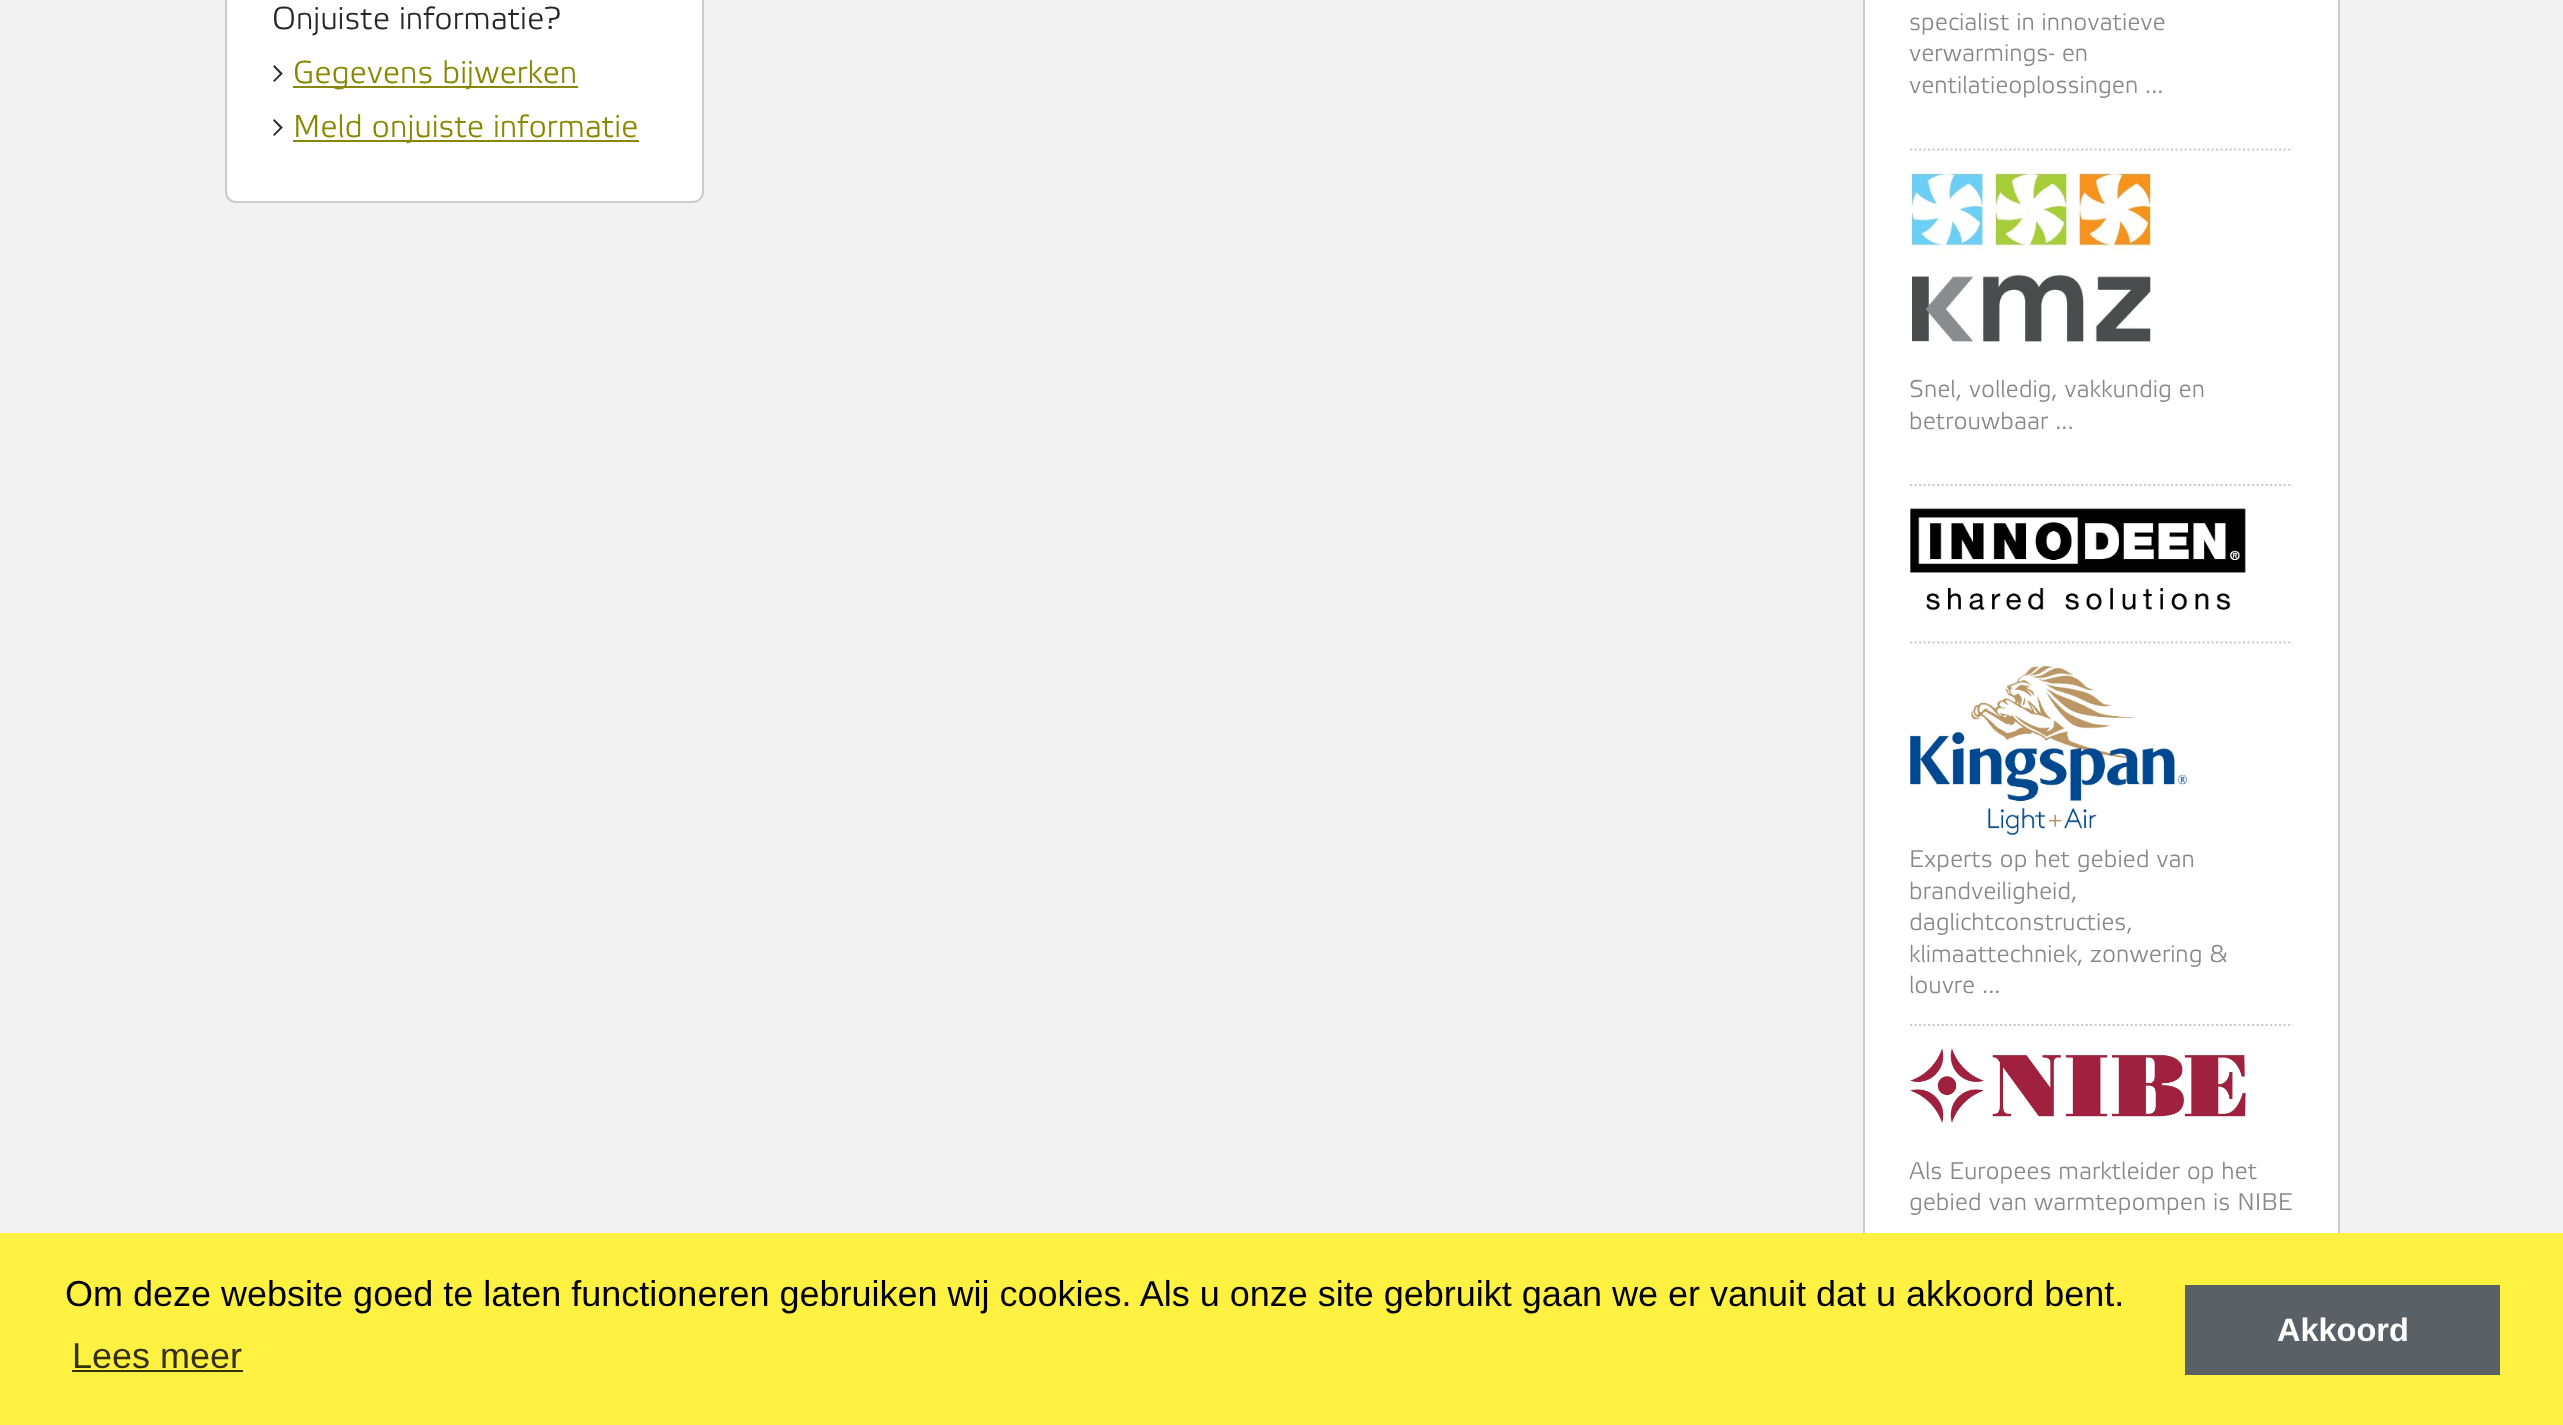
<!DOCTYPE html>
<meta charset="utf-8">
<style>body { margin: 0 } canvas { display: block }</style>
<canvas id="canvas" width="2563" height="1425"></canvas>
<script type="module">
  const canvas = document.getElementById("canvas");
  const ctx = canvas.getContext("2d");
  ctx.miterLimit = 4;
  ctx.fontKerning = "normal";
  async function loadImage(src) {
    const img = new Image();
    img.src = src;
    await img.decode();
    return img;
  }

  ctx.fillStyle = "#f2f2f2";
  ctx.fillRect(0, 0, 2563, 1425);
  ctx.fillStyle = "#ffffff";
  ctx.beginPath();
  ctx.roundRect(226, -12, 477, 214, 10);
  ctx.fill();
  ctx.strokeStyle = "#cccccc";
  ctx.lineWidth = 2;
  ctx.stroke();
  ctx.font = "300 31.5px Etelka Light";
  ctx.fillStyle = "#272727";
  ctx.fillText("Onjuiste informatie?", 272, 29);
  ctx.fillText("›", 272, 83);
  ctx.fillStyle = "#888800";
  ctx.fillRect(293, 86, 285, 2);
  ctx.fillText("Gegevens bijwerken", 293, 83);
  ctx.fillStyle = "#272727";
  ctx.fillText("›", 272, 137);
  ctx.fillStyle = "#888800";
  ctx.fillRect(293, 140, 346, 2);
  ctx.fillText("Meld onjuiste informatie", 293, 137);
  ctx.fillStyle = "#ffffff";
  ctx.fillRect(1865, 0, 473, 1233);
  ctx.strokeRect(1864, -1, 475, 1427);
  ctx.beginPath();
  ctx.moveTo(1910, 149.5);
  ctx.lineTo(2293, 149.5);
  ctx.lineWidth = 2.2;
  ctx.setLineDash([2.25, 2.25]);
  ctx.stroke();
  ctx.font = "300 24px Etelka Light";
  ctx.fillStyle = "#888888";
  ctx.fillText("specialist in innovatieve", 1909, 30);
  ctx.fillText("verwarmings- en", 1909, 61);
  ctx.fillText("ventilatieoplossingen ...", 1909, 93);
  ctx.beginPath();
  ctx.moveTo(1910, 485);
  ctx.lineTo(2293, 485);
  ctx.stroke();
  ctx.drawImage(await loadImage("img1.png"), 1910, 173, 241, 169);
  ctx.fillText("Snel, volledig, vakkundig en", 1909, 397);
  ctx.fillText("betrouwbaar ...", 1909, 429);
  ctx.beginPath();
  ctx.moveTo(1910, 642.5);
  ctx.lineTo(2293, 642.5);
  ctx.stroke();
  ctx.drawImage(await loadImage("img2.png"), 1910, 508, 336, 102);
  ctx.beginPath();
  ctx.moveTo(1910, 1025);
  ctx.lineTo(2293, 1025);
  ctx.stroke();
  ctx.drawImage(await loadImage("img3.png"), 1910, 666, 277, 169);
  ctx.fillText("Experts op het gebied van", 1909, 867);
  ctx.fillText("brandveiligheid,", 1909, 899);
  ctx.fillText("daglichtconstructies,", 1909, 930);
  ctx.fillText("klimaattechniek, zonwering &", 1909, 962);
  ctx.fillText("louvre ...", 1909, 993);
  ctx.drawImage(await loadImage("img4.png"), 1910, 1048, 336, 75);
  ctx.fillText("Als Europees marktleider op het", 1909, 1179);
  ctx.fillText("gebied van warmtepompen is NIBE", 1909, 1210);
  ctx.fillStyle = "#fef142";
  ctx.fillRect(0, 1233, 2563, 192);
  ctx.font = "36px Liberation Sans";
  ctx.fillStyle = "#000000";
  ctx.fillText("Om deze website goed te laten functioneren gebruiken wij cookies. Als u onze site gebruikt gaan we er vanuit dat u akkoord bent.", 65, 1306);
  ctx.fillStyle = "#33300d";
  ctx.fillText("Lees meer", 72, 1368);
  ctx.fillRect(72, 1370, 171, 2);
  ctx.fillStyle = "#596167";
  ctx.fillRect(2185, 1285, 315, 90);
  ctx.font = "bold 32.5px Liberation Sans";
  ctx.fillStyle = "#ffffff";
  ctx.fillText("Akkoord", 2277, 1341);
</script>
